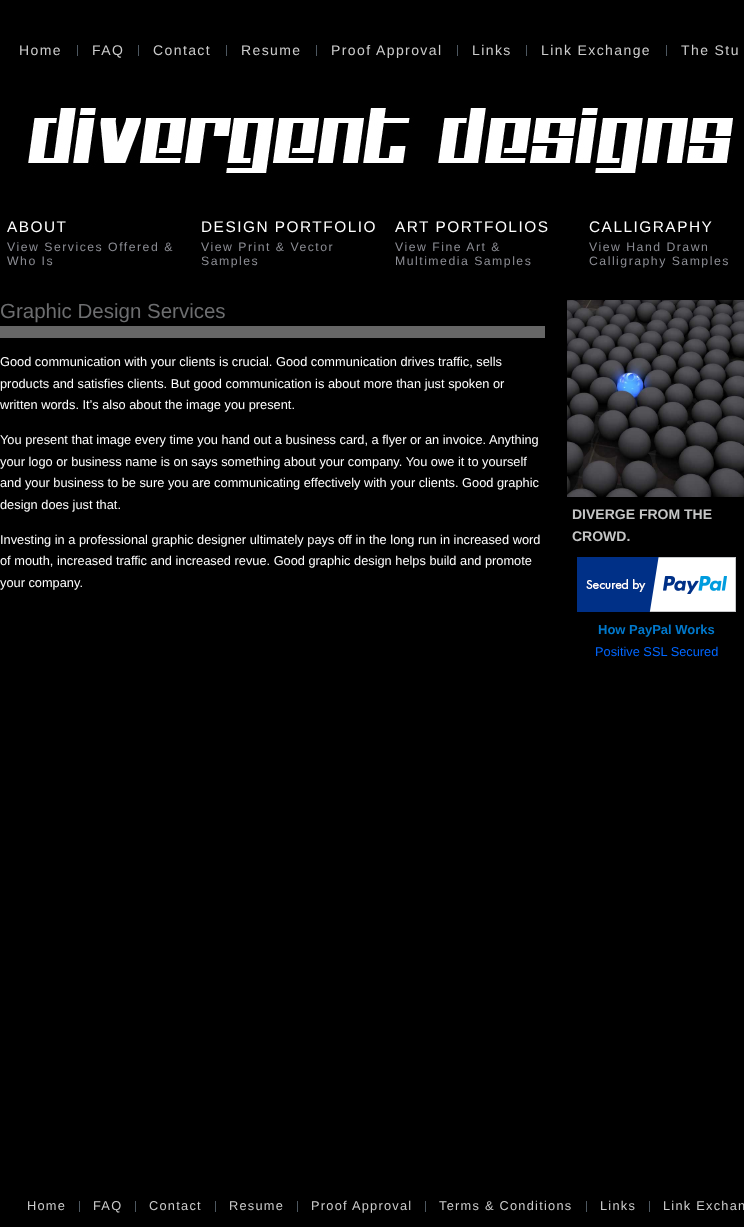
<!DOCTYPE html>
<meta charset="utf-8">
<style>body { margin: 0 } canvas { display: block }</style>
<canvas id="canvas" width="744" height="1227"></canvas>
<script type="module">
  const canvas = document.getElementById("canvas");
  const ctx = canvas.getContext("2d");
  ctx.miterLimit = 4;
  ctx.fontKerning = "normal";
  async function loadImage(src) {
    const img = new Image();
    img.src = src;
    await img.decode();
    return img;
  }

  ctx.fillStyle = "#000000";
  ctx.fillRect(0, 0, 744, 1227);
  ctx.fillStyle = "#4d5760";
  ctx.fillRect(77, 45, 1, 11);
  ctx.letterSpacing = "1.4px";
  ctx.font = "14px Liberation Sans";
  ctx.fillStyle = "#cccccc";
  ctx.fillText("Home", 19, 55);
  ctx.fillStyle = "#4d5760";
  ctx.fillRect(138, 45, 1, 11);
  ctx.fillStyle = "#cccccc";
  ctx.fillText("FAQ", 92, 55);
  ctx.fillStyle = "#4d5760";
  ctx.fillRect(226, 45, 1, 11);
  ctx.fillStyle = "#cccccc";
  ctx.fillText("Contact", 153, 55);
  ctx.fillStyle = "#4d5760";
  ctx.fillRect(316, 45, 1, 11);
  ctx.fillStyle = "#cccccc";
  ctx.fillText("Resume", 241, 55);
  ctx.fillStyle = "#4d5760";
  ctx.fillRect(457, 45, 1, 11);
  ctx.fillStyle = "#cccccc";
  ctx.fillText("Proof Approval", 331, 55);
  ctx.fillStyle = "#4d5760";
  ctx.fillRect(526, 45, 1, 11);
  ctx.fillStyle = "#cccccc";
  ctx.fillText("Links", 472, 55);
  ctx.fillStyle = "#4d5760";
  ctx.fillRect(666, 45, 1, 11);
  ctx.fillStyle = "#cccccc";
  ctx.fillText("Link Exchange", 541, 55);
  ctx.fillText("The Stu", 681, 55);
  ctx.drawImage(await loadImage("img1.png"), 28, 108, 705, 65);
  ctx.letterSpacing = "1.5px";
  ctx.font = "15.4px Liberation Sans";
  ctx.fillStyle = "#ffffff";
  ctx.fillText("ABOUT", 7, 232);
  ctx.font = "12.25px Liberation Sans";
  ctx.fillStyle = "#8c8d94";
  ctx.fillText("View Services Offered &", 7, 251);
  ctx.fillText("Who Is", 7, 265);
  ctx.font = "15.4px Liberation Sans";
  ctx.fillStyle = "#ffffff";
  ctx.fillText("DESIGN PORTFOLIO", 201, 232);
  ctx.font = "12.25px Liberation Sans";
  ctx.fillStyle = "#8c8d94";
  ctx.fillText("View Print & Vector", 201, 251);
  ctx.fillText("Samples", 201, 265);
  ctx.font = "15.4px Liberation Sans";
  ctx.fillStyle = "#ffffff";
  ctx.fillText("ART PORTFOLIOS", 395, 232);
  ctx.font = "12.25px Liberation Sans";
  ctx.fillStyle = "#8c8d94";
  ctx.fillText("View Fine Art &", 395, 251);
  ctx.fillText("Multimedia Samples", 395, 265);
  ctx.font = "15.4px Liberation Sans";
  ctx.fillStyle = "#ffffff";
  ctx.fillText("CALLIGRAPHY", 589, 232);
  ctx.font = "12.25px Liberation Sans";
  ctx.fillStyle = "#8c8d94";
  ctx.fillText("View Hand Drawn", 589, 251);
  ctx.fillText("Calligraphy Samples", 589, 265);
  ctx.fillStyle = "#666666";
  ctx.fillRect(0, 326, 545, 12);
  ctx.letterSpacing = "0px";
  ctx.font = "20.5px Liberation Sans";
  ctx.fillStyle = "#6d6e70";
  ctx.fillText("Graphic Design Services", 0, 318);
  ctx.font = "12.8px Liberation Sans";
  ctx.fillStyle = "#ffffff";
  ctx.fillText("Good communication with your clients is crucial. Good communication drives traffic, sells", 0, 366);
  ctx.fillText("products and satisfies clients. But good communication is about more than just spoken or", 0, 388);
  ctx.fillText("written words. It’s also about the image you present.", 0, 409);
  ctx.fillText("You present that image every time you hand out a business card, a flyer or an invoice. Anything", 0, 444);
  ctx.fillText("your logo or business name is on says something about your company. You owe it to yourself", 0, 466);
  ctx.fillText("and your business to be sure you are communicating effectively with your clients. Good graphic", 0, 487);
  ctx.fillText("design does just that.", 0, 509);
  ctx.fillText("Investing in a professional graphic designer ultimately pays off in the long run in increased word", 0, 544);
  ctx.fillText("of mouth, increased traffic and increased revue. Good graphic design helps build and promote", 0, 565);
  ctx.fillText("your company.", 0, 587);
  ctx.drawImage(await loadImage("img2.png"), 567, 300, 177, 197);
  ctx.font = "bold 14px Liberation Sans";
  ctx.fillStyle = "#c4c5c5";
  ctx.fillText("DIVERGE FROM THE", 572, 519);
  ctx.fillText("CROWD.", 572, 541);
  ctx.drawImage(await loadImage("img3.png"), 577, 557, 159, 55);
  ctx.font = "bold 13px Liberation Sans";
  ctx.fillStyle = "#0079cd";
  ctx.fillText("How PayPal Works", 598, 634);
  ctx.font = "12.8px Liberation Sans";
  ctx.fillStyle = "#0066ff";
  ctx.fillText("Positive SSL Secured", 595, 656);
  ctx.fillStyle = "#4d5760";
  ctx.fillRect(79, 1201, 1, 11);
  ctx.letterSpacing = "1.25px";
  ctx.fillStyle = "#cccccc";
  ctx.fillText("Home", 27, 1210);
  ctx.fillStyle = "#4d5760";
  ctx.fillRect(135, 1201, 1, 11);
  ctx.fillStyle = "#cccccc";
  ctx.fillText("FAQ", 93, 1210);
  ctx.fillStyle = "#4d5760";
  ctx.fillRect(215, 1201, 1, 11);
  ctx.fillStyle = "#cccccc";
  ctx.fillText("Contact", 149, 1210);
  ctx.fillStyle = "#4d5760";
  ctx.fillRect(297, 1201, 1, 11);
  ctx.fillStyle = "#cccccc";
  ctx.fillText("Resume", 229, 1210);
  ctx.fillStyle = "#4d5760";
  ctx.fillRect(425, 1201, 1, 11);
  ctx.fillStyle = "#cccccc";
  ctx.fillText("Proof Approval", 311, 1210);
  ctx.fillStyle = "#4d5760";
  ctx.fillRect(586, 1201, 1, 11);
  ctx.fillStyle = "#cccccc";
  ctx.fillText("Terms & Conditions", 439, 1210);
  ctx.fillStyle = "#4d5760";
  ctx.fillRect(649, 1201, 1, 11);
  ctx.fillStyle = "#cccccc";
  ctx.fillText("Links", 600, 1210);
  ctx.fillText("Link Exchan", 663, 1210);
</script>
